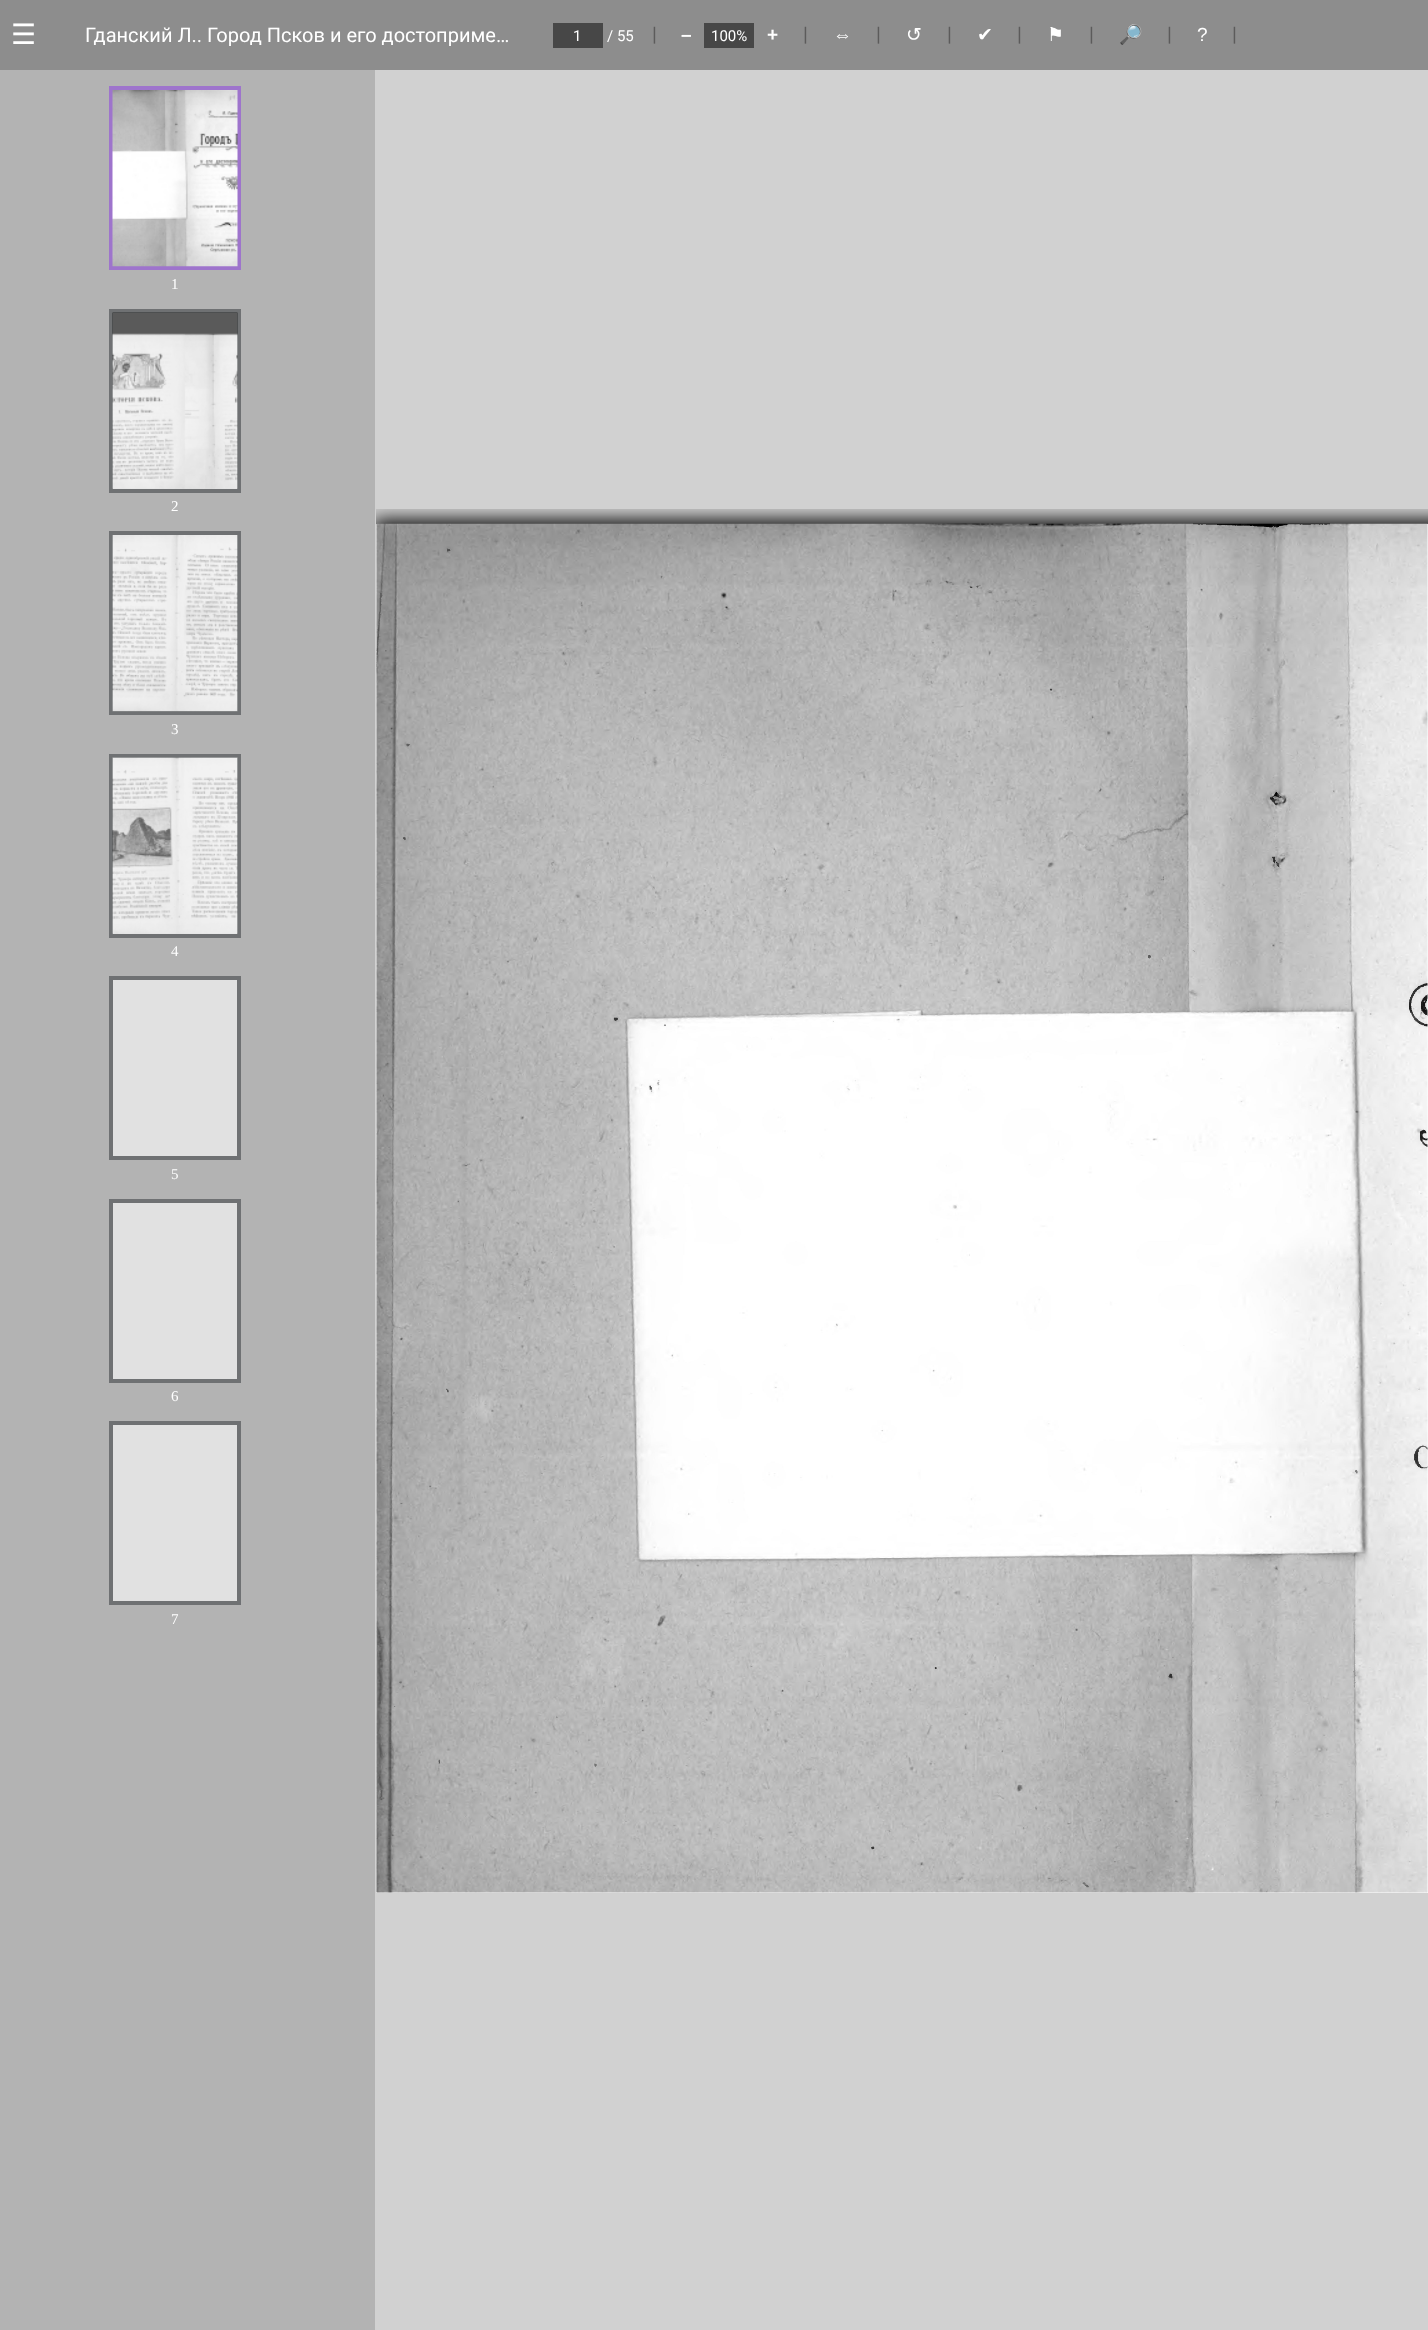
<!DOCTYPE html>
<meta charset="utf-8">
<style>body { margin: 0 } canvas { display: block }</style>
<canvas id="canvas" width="1428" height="2330"></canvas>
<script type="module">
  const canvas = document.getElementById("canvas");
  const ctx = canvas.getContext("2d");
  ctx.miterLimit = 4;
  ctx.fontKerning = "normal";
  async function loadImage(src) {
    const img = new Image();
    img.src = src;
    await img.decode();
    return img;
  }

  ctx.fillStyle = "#8d8d8d";
  ctx.fillRect(0, 0, 1428, 2330);
  ctx.font = "28px DejaVu Sans";
  ctx.fillStyle = "#ffffff";
  ctx.fillText("☰", 11, 44);
  ctx.font = "20px Roboto";
  ctx.fillText("Гданский Л.. Город Псков и его достоприме…", 85, 42);
  ctx.fillStyle = "#474747";
  ctx.fillRect(553, 23, 50, 25);
  ctx.font = "15px Roboto";
  ctx.fillStyle = "#ffffff";
  ctx.fillText("1", 573, 41);
  ctx.fillText("/ 55", 607, 41);
  ctx.font = "20px Roboto";
  ctx.fillStyle = "#5c5b5b";
  ctx.fillText("|", 652, 41);
  ctx.font = "bold 19px Liberation Sans";
  ctx.fillStyle = "#ffffff";
  ctx.fillText("–", 681, 41);
  ctx.fillStyle = "#474747";
  ctx.fillRect(704, 23, 50, 25);
  ctx.font = "15px Roboto";
  ctx.fillStyle = "#ffffff";
  ctx.fillText("100%", 711, 41);
  ctx.font = "bold 19px Liberation Sans";
  ctx.fillText("+", 767, 41);
  ctx.font = "20px Roboto";
  ctx.fillStyle = "#5c5b5b";
  ctx.fillText("|", 803, 41);
  ctx.font = "19px Liberation Sans";
  ctx.fillStyle = "#ffffff";
  ctx.fillText("⇔", 833, 41);
  ctx.font = "20px Roboto";
  ctx.fillStyle = "#5c5b5b";
  ctx.fillText("|", 876, 41);
  ctx.font = "19px DejaVu Sans";
  ctx.fillStyle = "#ffffff";
  ctx.fillText("↺", 906, 41);
  ctx.font = "20px Roboto";
  ctx.fillStyle = "#5c5b5b";
  ctx.fillText("|", 947, 41);
  ctx.font = "19px DejaVu Sans";
  ctx.fillStyle = "#ffffff";
  ctx.fillText("✔", 977, 41);
  ctx.font = "20px Roboto";
  ctx.fillStyle = "#5c5b5b";
  ctx.fillText("|", 1017, 41);
  ctx.font = "19px DejaVu Sans";
  ctx.fillStyle = "#ffffff";
  ctx.fillText("⚑", 1047, 41);
  ctx.font = "20px Roboto";
  ctx.fillStyle = "#5c5b5b";
  ctx.fillText("|", 1089, 41);
  ctx.font = "19px Noto Color Emoji";
  ctx.fillStyle = "#ffffff";
  ctx.fillText("🔎", 1119, 41);
  ctx.font = "20px Roboto";
  ctx.fillStyle = "#5c5b5b";
  ctx.fillText("|", 1167, 41);
  ctx.font = "19px Liberation Sans";
  ctx.fillStyle = "#ffffff";
  ctx.fillText("?", 1197, 41);
  ctx.font = "20px Roboto";
  ctx.fillStyle = "#5c5b5b";
  ctx.fillText("|", 1232, 41);
  ctx.fillStyle = "#b3b3b3";
  ctx.fillRect(0, 70, 375, 2260);
  ctx.strokeStyle = "#9e74cc";
  ctx.lineWidth = 4;
  ctx.strokeRect(111, 88, 128, 180);
  ctx.drawImage(await loadImage("img1.png"), 112, 90, 126, 177);
  ctx.font = "15px Liberation Serif";
  ctx.fillStyle = "#ffffff";
  ctx.fillText("1", 171, 289);
  ctx.fillStyle = "#e1e1e1";
  ctx.beginPath();
  ctx.rect(111, 311, 128, 180);
  ctx.fill();
  ctx.strokeStyle = "#6f7173";
  ctx.stroke();
  ctx.drawImage(await loadImage("img2.png"), 112, 312, 126, 177);
  ctx.fillStyle = "#ffffff";
  ctx.fillText("2", 171, 511);
  ctx.fillStyle = "#e1e1e1";
  ctx.beginPath();
  ctx.rect(111, 533, 128, 180);
  ctx.fill();
  ctx.stroke();
  ctx.drawImage(await loadImage("img3.png"), 112, 535, 126, 177);
  ctx.fillStyle = "#ffffff";
  ctx.fillText("3", 171, 734);
  ctx.fillStyle = "#e1e1e1";
  ctx.beginPath();
  ctx.rect(111, 756, 128, 180);
  ctx.fill();
  ctx.stroke();
  ctx.drawImage(await loadImage("img4.png"), 112, 757, 126, 177);
  ctx.fillStyle = "#ffffff";
  ctx.fillText("4", 171, 956);
  ctx.fillStyle = "#e1e1e1";
  ctx.beginPath();
  ctx.rect(111, 978, 128, 180);
  ctx.fill();
  ctx.stroke();
  ctx.fillStyle = "#ffffff";
  ctx.fillText("5", 171, 1179);
  ctx.fillStyle = "#e1e1e1";
  ctx.beginPath();
  ctx.rect(111, 1201, 128, 180);
  ctx.fill();
  ctx.stroke();
  ctx.fillStyle = "#ffffff";
  ctx.fillText("6", 171, 1401);
  ctx.fillStyle = "#e1e1e1";
  ctx.beginPath();
  ctx.rect(111, 1423, 128, 180);
  ctx.fill();
  ctx.stroke();
  ctx.fillStyle = "#ffffff";
  ctx.fillText("7", 171, 1624);
  ctx.fillStyle = "#d1d1d1";
  ctx.fillRect(375, 70, 1053, 2260);
  ctx.save();
  ctx.beginPath();
  ctx.rect(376, 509, 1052, 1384);
  ctx.clip();
  ctx.fillStyle = "#000000";
  ctx.filter = "blur(9.5px)";
  ctx.beginPath();
  ctx.rect(373, 520, 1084, 1431);
  ctx.fill();
  ctx.filter = "none";
  ctx.restore();
  ctx.fillStyle = "#ffffff";
  ctx.fillRect(376, 524, 1052, 1369);
  ctx.drawImage(await loadImage("img5.png"), 376, 523, 1052, 1370);
</script>
